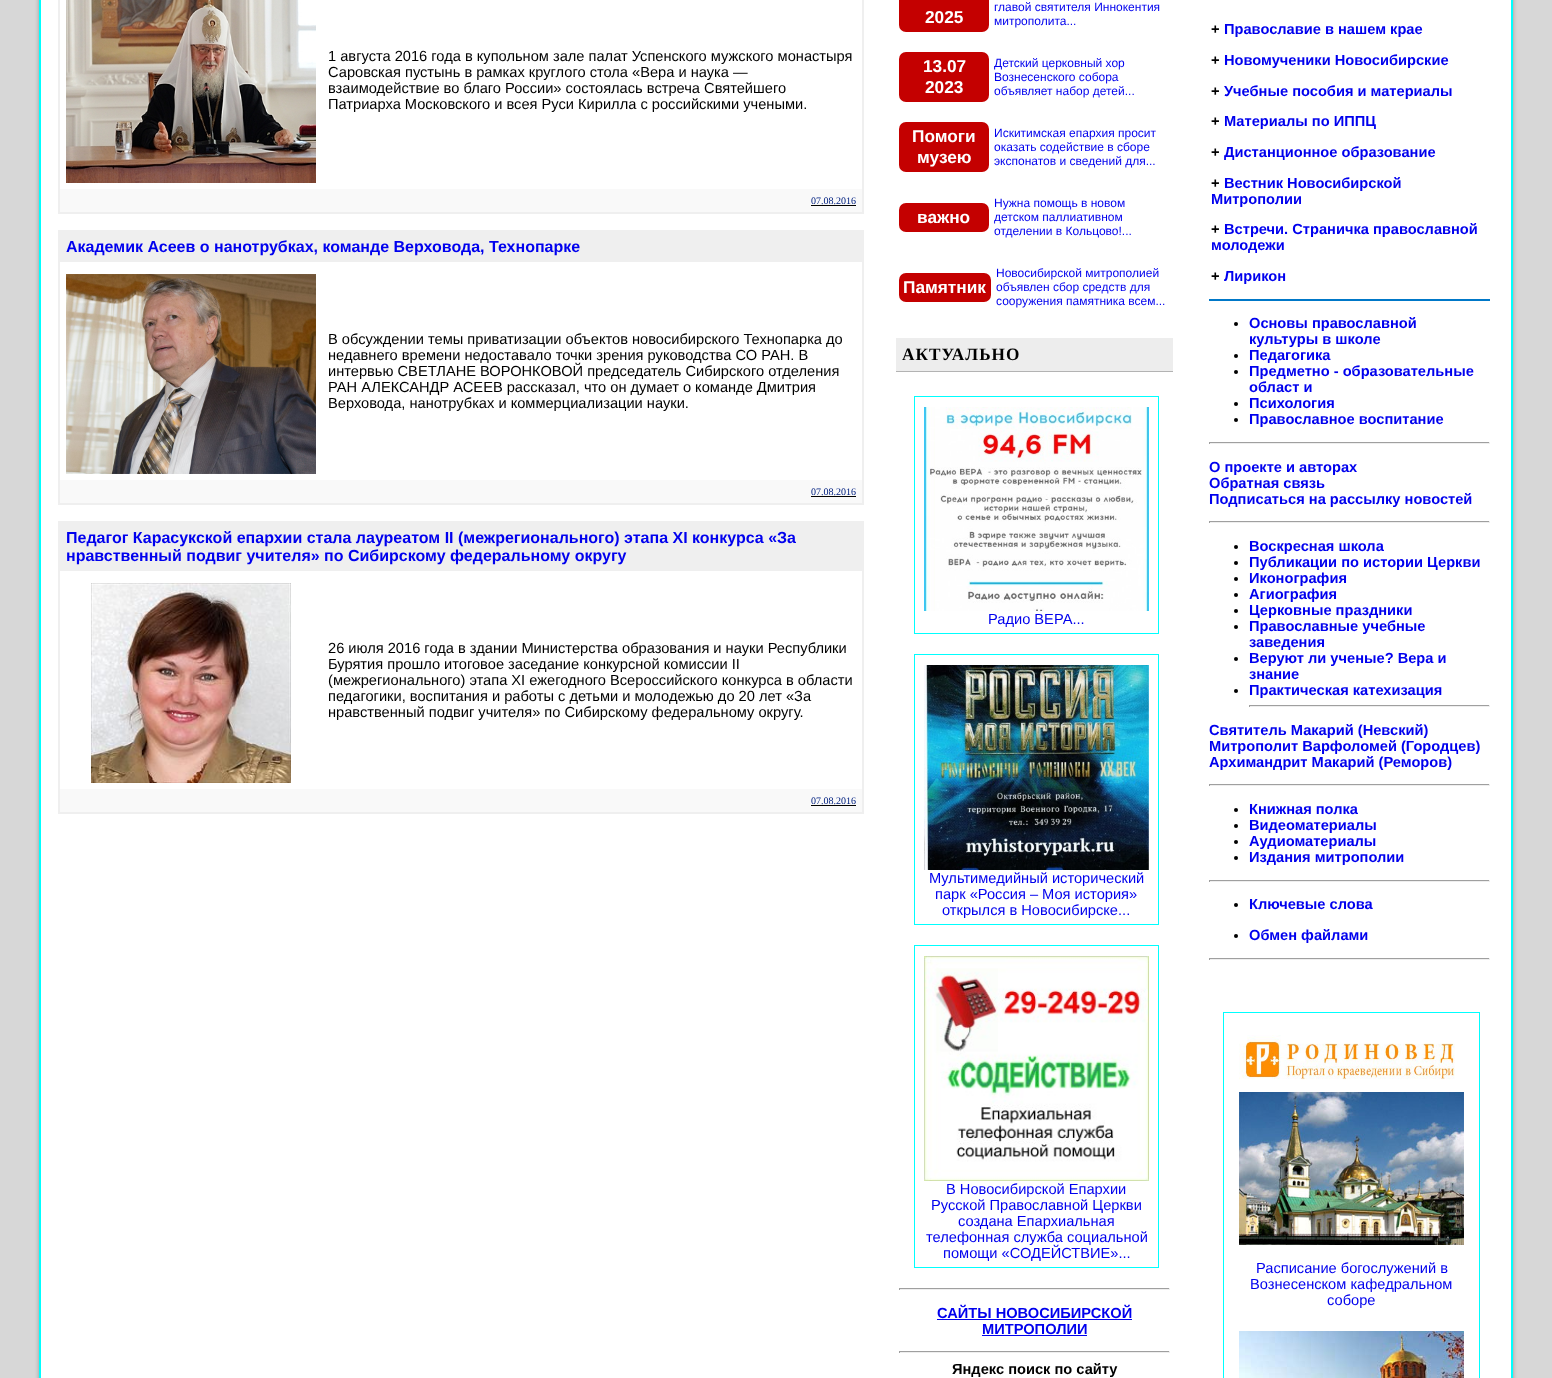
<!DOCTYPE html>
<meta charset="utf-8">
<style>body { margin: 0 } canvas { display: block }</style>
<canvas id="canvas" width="1552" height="1378"></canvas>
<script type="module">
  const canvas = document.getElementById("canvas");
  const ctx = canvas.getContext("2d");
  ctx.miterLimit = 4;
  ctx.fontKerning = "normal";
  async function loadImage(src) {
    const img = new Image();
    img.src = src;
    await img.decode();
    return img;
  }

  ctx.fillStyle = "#d7d7d7";
  ctx.fillRect(0, 0, 1552, 1378);
  ctx.fillStyle = "rgba(0, 0, 0, 0.3)";
  ctx.filter = "blur(2px)";
  ctx.beginPath();
  ctx.rect(39, -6, 1474, 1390);
  ctx.fill();
  ctx.filter = "none";
  ctx.fillStyle = "#ffffff";
  ctx.beginPath();
  ctx.rect(40, -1, 1472, 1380);
  ctx.fill();
  ctx.strokeStyle = "#00ffff";
  ctx.lineWidth = 2;
  ctx.stroke();
  ctx.strokeStyle = "#efefef";
  ctx.strokeRect(59, -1, 804, 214);
  ctx.drawImage(await loadImage("img1.png"), 66, 0, 250, 183);
  ctx.font = "14.65px Liberation Sans";
  ctx.fillStyle = "#000000";
  ctx.fillText("1 августа 2016 года в купольном зале палат Успенского мужского монастыря", 328, 61);
  ctx.fillText("Саровская пустынь в рамках круглого стола «Вера и наука ―", 328, 77);
  ctx.fillText("взаимодействие во благо России» состоялась встреча Святейшего", 328, 93);
  ctx.fillText("Патриарха Московского и всея Руси Кирилла с российскими учеными.", 328, 109);
  ctx.fillStyle = "#f9f9f9";
  ctx.fillRect(60, 189, 802, 23);
  ctx.font = "10px Liberation Serif";
  ctx.fillStyle = "#002080";
  ctx.fillText("07.08.2016", 811, 204);
  ctx.fillStyle = "#000000";
  ctx.fillRect(811, 205, 45, 1);
  ctx.strokeRect(59, 231, 804, 273);
  ctx.fillStyle = "#efefef";
  ctx.fillRect(60, 232, 802, 30);
  ctx.font = "bold 16px Liberation Sans";
  ctx.fillStyle = "#0000ee";
  ctx.fillText("Академик Асеев о нанотрубках, команде Верховода, Технопарке", 66, 252);
  ctx.drawImage(await loadImage("img2.png"), 66, 274, 250, 200);
  ctx.font = "14.65px Liberation Sans";
  ctx.fillStyle = "#000000";
  ctx.fillText("В обсуждении темы приватизации объектов новосибирского Технопарка до", 328, 344);
  ctx.fillText("недавнего времени недоставало точки зрения руководства СО РАН. В", 328, 360);
  ctx.fillText("интервью СВЕТЛАНЕ ВОРОНКОВОЙ председатель Сибирского отделения", 328, 376);
  ctx.fillText("РАН АЛЕКСАНДР АСЕЕВ рассказал, что он думает о команде Дмитрия", 328, 392);
  ctx.fillText("Верховода, нанотрубках и коммерциализации науки.", 328, 408);
  ctx.fillStyle = "#f9f9f9";
  ctx.fillRect(60, 480, 802, 23);
  ctx.font = "10px Liberation Serif";
  ctx.fillStyle = "#002080";
  ctx.fillText("07.08.2016", 811, 495);
  ctx.fillStyle = "#000000";
  ctx.fillRect(811, 496, 45, 1);
  ctx.strokeRect(59, 522, 804, 291);
  ctx.fillStyle = "#efefef";
  ctx.fillRect(60, 523, 802, 48);
  ctx.font = "bold 16px Liberation Sans";
  ctx.fillStyle = "#0000ee";
  ctx.fillText("Педагог Карасукской епархии стала лауреатом II (межрегионального) этапа XI конкурса «За", 66, 543);
  ctx.fillText("нравственный подвиг учителя» по Сибирскому федеральному округу", 66, 561);
  ctx.drawImage(await loadImage("img3.png"), 91, 583, 200, 200);
  ctx.font = "14.65px Liberation Sans";
  ctx.fillStyle = "#000000";
  ctx.fillText("26 июля 2016 года в здании Министерства образования и науки Республики", 328, 653);
  ctx.fillText("Бурятия прошло итоговое заседание конкурсной комиссии II", 328, 669);
  ctx.fillText("(межрегионального) этапа XI ежегодного Всероссийского конкурса в области", 328, 685);
  ctx.fillText("педагогики, воспитания и работы с детьми и молодежью до 20 лет «За", 328, 701);
  ctx.fillText("нравственный подвиг учителя» по Сибирскому федеральному округу.", 328, 717);
  ctx.fillStyle = "#f9f9f9";
  ctx.fillRect(60, 789, 802, 23);
  ctx.font = "10px Liberation Serif";
  ctx.fillStyle = "#002080";
  ctx.fillText("07.08.2016", 811, 804);
  ctx.fillStyle = "#000000";
  ctx.fillRect(811, 805, 45, 1);
  ctx.fillStyle = "#c40000";
  ctx.beginPath();
  ctx.roundRect(899, -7, 90, 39, 7);
  ctx.fill();
  ctx.font = "bold 17.25px Liberation Sans";
  ctx.fillStyle = "#ffffff";
  ctx.fillText("2025", 925, 23);
  ctx.font = "12px Liberation Sans";
  ctx.fillStyle = "#0000ee";
  ctx.fillText("главой святителя Иннокентия", 994, 11);
  ctx.fillText("митрополита...", 994, 25);
  ctx.fillStyle = "#c40000";
  ctx.beginPath();
  ctx.roundRect(899, 52, 90, 50, 7);
  ctx.fill();
  ctx.font = "bold 17.25px Liberation Sans";
  ctx.fillStyle = "#ffffff";
  ctx.fillText("13.07", 923, 72);
  ctx.fillText("2023", 925, 93);
  ctx.font = "12px Liberation Sans";
  ctx.fillStyle = "#0000ee";
  ctx.fillText("Детский церковный хор", 994, 67);
  ctx.fillText("Вознесенского собора", 994, 81);
  ctx.fillText("объявляет набор детей...", 994, 95);
  ctx.fillStyle = "#c40000";
  ctx.beginPath();
  ctx.roundRect(899, 122, 90, 50, 7);
  ctx.fill();
  ctx.font = "bold 17.25px Liberation Sans";
  ctx.fillStyle = "#ffffff";
  ctx.fillText("Помоги", 912, 142);
  ctx.fillText("музею", 917, 163);
  ctx.font = "12px Liberation Sans";
  ctx.fillStyle = "#0000ee";
  ctx.fillText("Искитимская епархия просит", 994, 137);
  ctx.fillText("оказать содействие в сборе", 994, 151);
  ctx.fillText("экспонатов и сведений для...", 994, 165);
  ctx.fillStyle = "#c40000";
  ctx.beginPath();
  ctx.roundRect(899, 203, 90, 29, 7);
  ctx.fill();
  ctx.font = "bold 17.25px Liberation Sans";
  ctx.fillStyle = "#ffffff";
  ctx.fillText("важно", 917, 223);
  ctx.font = "12px Liberation Sans";
  ctx.fillStyle = "#0000ee";
  ctx.fillText("Нужна помощь в новом", 994, 207);
  ctx.fillText("детском паллиативном", 994, 221);
  ctx.fillText("отделении в Кольцово!...", 994, 235);
  ctx.fillStyle = "#c40000";
  ctx.beginPath();
  ctx.roundRect(899, 273, 92, 29, 7);
  ctx.fill();
  ctx.font = "bold 17.25px Liberation Sans";
  ctx.fillStyle = "#ffffff";
  ctx.fillText("Памятник", 903, 293);
  ctx.font = "12px Liberation Sans";
  ctx.fillStyle = "#0000ee";
  ctx.fillText("Новосибирской митрополией", 996, 277);
  ctx.fillText("объявлен сбор средств для", 996, 291);
  ctx.fillText("сооружения памятника всем...", 996, 305);
  ctx.fillStyle = "#b3b3b3";
  ctx.fillRect(896, 371, 277, 1);
  ctx.fillStyle = "#ededed";
  ctx.fillRect(896, 338, 277, 33);
  ctx.letterSpacing = "1px";
  ctx.font = "bold 17.25px Liberation Serif";
  ctx.fillStyle = "#000000";
  ctx.fillText("АКТУАЛЬНО", 902, 360);
  ctx.strokeStyle = "#00ffff";
  ctx.lineWidth = 1;
  ctx.strokeRect(914.5, 396.5, 244, 237);
  ctx.drawImage(await loadImage("img4.png"), 924, 407, 225, 204);
  ctx.letterSpacing = "0px";
  ctx.font = "14.65px Liberation Sans";
  ctx.fillStyle = "#0000ee";
  ctx.fillText("Радио ВЕРА...", 988, 624);
  ctx.strokeRect(914.5, 654.5, 244, 270);
  ctx.drawImage(await loadImage("img5.png"), 924, 665, 225, 205);
  ctx.fillText("Мультимедийный исторический", 929, 883);
  ctx.fillText("парк «Россия – Моя история»", 935, 899);
  ctx.fillText("открылся в Новосибирске...", 942, 915);
  ctx.strokeRect(914.5, 945.5, 244, 322);
  ctx.drawImage(await loadImage("img6.png"), 924, 956, 225, 225);
  ctx.fillText("В Новосибирской Епархии", 946, 1194);
  ctx.fillText("Русской Православной Церкви", 931, 1210);
  ctx.fillText("создана Епархиальная", 958, 1226);
  ctx.fillText("телефонная служба социальной", 926, 1242);
  ctx.fillText("помощи «СОДЕЙСТВИЕ»...", 943, 1258);
  ctx.fillStyle = "#9f9f9f";
  ctx.fillRect(899, 1288, 271, 1);
  ctx.fillStyle = "#eeeeee";
  ctx.fillRect(1169, 1288, 1, 2);
  ctx.fillRect(899, 1289, 271, 1);
  ctx.fillStyle = "#9f9f9f";
  ctx.fillRect(899, 1288, 1, 2);
  ctx.font = "bold 14.65px Liberation Sans";
  ctx.fillStyle = "#0000ee";
  ctx.fillText("САЙТЫ НОВОСИБИРСКОЙ", 937, 1318);
  ctx.fillRect(937, 1319, 195, 1);
  ctx.fillText("МИТРОПОЛИИ", 982, 1334);
  ctx.fillRect(982, 1335, 105, 1);
  ctx.fillStyle = "#9f9f9f";
  ctx.fillRect(899, 1351, 271, 1);
  ctx.fillStyle = "#eeeeee";
  ctx.fillRect(1169, 1351, 1, 2);
  ctx.fillRect(899, 1352, 271, 1);
  ctx.fillStyle = "#9f9f9f";
  ctx.fillRect(899, 1351, 1, 2);
  ctx.fillStyle = "#000000";
  ctx.fillText("Яндекс поиск по сайту", 952, 1374);
  ctx.fillText("+", 1211, 34);
  ctx.fillStyle = "#0000ee";
  ctx.fillText("Православие в нашем крае", 1224, 34);
  ctx.fillStyle = "#000000";
  ctx.fillText("+", 1211, 65);
  ctx.fillStyle = "#0000ee";
  ctx.fillText("Новомученики Новосибирские", 1224, 65);
  ctx.fillStyle = "#000000";
  ctx.fillText("+", 1211, 96);
  ctx.fillStyle = "#0000ee";
  ctx.fillText("Учебные пособия и материалы", 1224, 96);
  ctx.fillStyle = "#000000";
  ctx.fillText("+", 1211, 126);
  ctx.fillStyle = "#0000ee";
  ctx.fillText("Материалы по ИППЦ", 1224, 126);
  ctx.fillStyle = "#000000";
  ctx.fillText("+", 1211, 157);
  ctx.fillStyle = "#0000ee";
  ctx.fillText("Дистанционное образование", 1224, 157);
  ctx.fillStyle = "#000000";
  ctx.fillText("+", 1211, 188);
  ctx.fillStyle = "#0000ee";
  ctx.fillText("Вестник Новосибирской", 1224, 188);
  ctx.fillText("Митрополии", 1211, 204);
  ctx.fillStyle = "#000000";
  ctx.fillText("+", 1211, 234);
  ctx.fillStyle = "#0000ee";
  ctx.fillText("Встречи. Страничка православной", 1224, 234);
  ctx.fillText("молодежи", 1211, 250);
  ctx.fillStyle = "#000000";
  ctx.fillText("+", 1211, 281);
  ctx.fillStyle = "#0000ee";
  ctx.fillText("Лирикон", 1224, 281);
  ctx.fillStyle = "#0078c8";
  ctx.fillRect(1209, 299, 281, 2);
  ctx.fillStyle = "#000000";
  ctx.beginPath();
  ctx.arc(1236, 324, 2, 0, Math.PI * 2);
  ctx.fill();
  ctx.fillStyle = "#0000ee";
  ctx.fillText("Основы православной", 1249, 328);
  ctx.fillText("культуры в школе", 1249, 344);
  ctx.fillStyle = "#000000";
  ctx.beginPath();
  ctx.arc(1236, 356, 2, 0, Math.PI * 2);
  ctx.fill();
  ctx.fillStyle = "#0000ee";
  ctx.fillText("Педагогика", 1249, 360);
  ctx.fillStyle = "#000000";
  ctx.beginPath();
  ctx.arc(1236, 372, 2, 0, Math.PI * 2);
  ctx.fill();
  ctx.fillStyle = "#0000ee";
  ctx.fillText("Предметно - образовательные", 1249, 376);
  ctx.fillText("област и", 1249, 392);
  ctx.fillStyle = "#000000";
  ctx.beginPath();
  ctx.arc(1236, 404, 2, 0, Math.PI * 2);
  ctx.fill();
  ctx.fillStyle = "#0000ee";
  ctx.fillText("Психология", 1249, 408);
  ctx.fillStyle = "#000000";
  ctx.beginPath();
  ctx.arc(1236, 420, 2, 0, Math.PI * 2);
  ctx.fill();
  ctx.fillStyle = "#0000ee";
  ctx.fillText("Православное воспитание", 1249, 424);
  ctx.fillStyle = "#9f9f9f";
  ctx.fillRect(1209, 442, 281, 1);
  ctx.fillStyle = "#eeeeee";
  ctx.fillRect(1489, 442, 1, 2);
  ctx.fillRect(1209, 443, 281, 1);
  ctx.fillStyle = "#9f9f9f";
  ctx.fillRect(1209, 442, 1, 2);
  ctx.fillStyle = "#0000ee";
  ctx.fillText("О проекте и авторах", 1209, 472);
  ctx.fillText("Обратная связь", 1209, 488);
  ctx.fillText("Подписаться на рассылку новостей", 1209, 504);
  ctx.fillStyle = "#9f9f9f";
  ctx.fillRect(1209, 521, 281, 1);
  ctx.fillStyle = "#eeeeee";
  ctx.fillRect(1489, 521, 1, 2);
  ctx.fillRect(1209, 522, 281, 1);
  ctx.fillStyle = "#9f9f9f";
  ctx.fillRect(1209, 521, 1, 2);
  ctx.fillStyle = "#000000";
  ctx.beginPath();
  ctx.arc(1236, 547, 2, 0, Math.PI * 2);
  ctx.fill();
  ctx.fillStyle = "#0000ee";
  ctx.fillText("Воскресная школа", 1249, 551);
  ctx.fillStyle = "#000000";
  ctx.beginPath();
  ctx.arc(1236, 563, 2, 0, Math.PI * 2);
  ctx.fill();
  ctx.fillStyle = "#0000ee";
  ctx.fillText("Публикации по истории Церкви", 1249, 567);
  ctx.fillStyle = "#000000";
  ctx.beginPath();
  ctx.arc(1236, 579, 2, 0, Math.PI * 2);
  ctx.fill();
  ctx.fillStyle = "#0000ee";
  ctx.fillText("Иконография", 1249, 583);
  ctx.fillStyle = "#000000";
  ctx.beginPath();
  ctx.arc(1236, 595, 2, 0, Math.PI * 2);
  ctx.fill();
  ctx.fillStyle = "#0000ee";
  ctx.fillText("Агиография", 1249, 599);
  ctx.fillStyle = "#000000";
  ctx.beginPath();
  ctx.arc(1236, 611, 2, 0, Math.PI * 2);
  ctx.fill();
  ctx.fillStyle = "#0000ee";
  ctx.fillText("Церковные праздники", 1249, 615);
  ctx.fillStyle = "#000000";
  ctx.beginPath();
  ctx.arc(1236, 627, 2, 0, Math.PI * 2);
  ctx.fill();
  ctx.fillStyle = "#0000ee";
  ctx.fillText("Православные учебные", 1249, 631);
  ctx.fillText("заведения", 1249, 647);
  ctx.fillStyle = "#000000";
  ctx.beginPath();
  ctx.arc(1236, 659, 2, 0, Math.PI * 2);
  ctx.fill();
  ctx.fillStyle = "#0000ee";
  ctx.fillText("Веруют ли ученые? Вера и", 1249, 663);
  ctx.fillText("знание", 1249, 679);
  ctx.fillStyle = "#000000";
  ctx.beginPath();
  ctx.arc(1236, 691, 2, 0, Math.PI * 2);
  ctx.fill();
  ctx.fillStyle = "#0000ee";
  ctx.fillText("Практическая катехизация", 1249, 695);
  ctx.fillStyle = "#9f9f9f";
  ctx.fillRect(1249, 705, 241, 1);
  ctx.fillStyle = "#eeeeee";
  ctx.fillRect(1489, 705, 1, 2);
  ctx.fillRect(1249, 706, 241, 1);
  ctx.fillStyle = "#9f9f9f";
  ctx.fillRect(1249, 705, 1, 2);
  ctx.fillStyle = "#0000ee";
  ctx.fillText("Святитель Макарий (Невский)", 1209, 735);
  ctx.fillText("Митрополит Варфоломей (Городцев)", 1209, 751);
  ctx.fillText("Архимандрит Макарий (Реморов)", 1209, 767);
  ctx.fillStyle = "#9f9f9f";
  ctx.fillRect(1209, 784, 281, 1);
  ctx.fillStyle = "#eeeeee";
  ctx.fillRect(1489, 784, 1, 2);
  ctx.fillRect(1209, 785, 281, 1);
  ctx.fillStyle = "#9f9f9f";
  ctx.fillRect(1209, 784, 1, 2);
  ctx.fillStyle = "#000000";
  ctx.beginPath();
  ctx.arc(1236, 810, 2, 0, Math.PI * 2);
  ctx.fill();
  ctx.fillStyle = "#0000ee";
  ctx.fillText("Книжная полка", 1249, 814);
  ctx.fillStyle = "#000000";
  ctx.beginPath();
  ctx.arc(1236, 826, 2, 0, Math.PI * 2);
  ctx.fill();
  ctx.fillStyle = "#0000ee";
  ctx.fillText("Видеоматериалы", 1249, 830);
  ctx.fillStyle = "#000000";
  ctx.beginPath();
  ctx.arc(1236, 842, 2, 0, Math.PI * 2);
  ctx.fill();
  ctx.fillStyle = "#0000ee";
  ctx.fillText("Аудиоматериалы", 1249, 846);
  ctx.fillStyle = "#000000";
  ctx.beginPath();
  ctx.arc(1236, 858, 2, 0, Math.PI * 2);
  ctx.fill();
  ctx.fillStyle = "#0000ee";
  ctx.fillText("Издания митрополии", 1249, 862);
  ctx.fillStyle = "#9f9f9f";
  ctx.fillRect(1209, 880, 281, 1);
  ctx.fillStyle = "#eeeeee";
  ctx.fillRect(1489, 880, 1, 2);
  ctx.fillRect(1209, 881, 281, 1);
  ctx.fillStyle = "#9f9f9f";
  ctx.fillRect(1209, 880, 1, 2);
  ctx.fillStyle = "#000000";
  ctx.beginPath();
  ctx.arc(1236, 905, 2, 0, Math.PI * 2);
  ctx.fill();
  ctx.fillStyle = "#0000ee";
  ctx.fillText("Ключевые слова", 1249, 909);
  ctx.fillStyle = "#000000";
  ctx.beginPath();
  ctx.arc(1236, 936, 2, 0, Math.PI * 2);
  ctx.fill();
  ctx.fillStyle = "#0000ee";
  ctx.fillText("Обмен файлами", 1249, 940);
  ctx.fillStyle = "#9f9f9f";
  ctx.fillRect(1209, 958, 281, 1);
  ctx.fillStyle = "#eeeeee";
  ctx.fillRect(1489, 958, 1, 2);
  ctx.fillRect(1209, 959, 281, 1);
  ctx.fillStyle = "#9f9f9f";
  ctx.fillRect(1209, 958, 1, 2);
  ctx.strokeRect(1223.5, 1012.5, 256, 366);
  ctx.drawImage(await loadImage("img7.png"), 1239, 1035, 216, 45);
  ctx.drawImage(await loadImage("img8.png"), 1239, 1092, 225, 153);
  ctx.font = "14.65px Liberation Sans";
  ctx.fillStyle = "#0000ee";
  ctx.fillText("Расписание богослужений в", 1256, 1273);
  ctx.fillText("Вознесенском кафедральном", 1250, 1289);
  ctx.fillText("соборе", 1327, 1305);
  ctx.drawImage(await loadImage("img9.png"), 1239, 1331, 225, 47);
</script>
